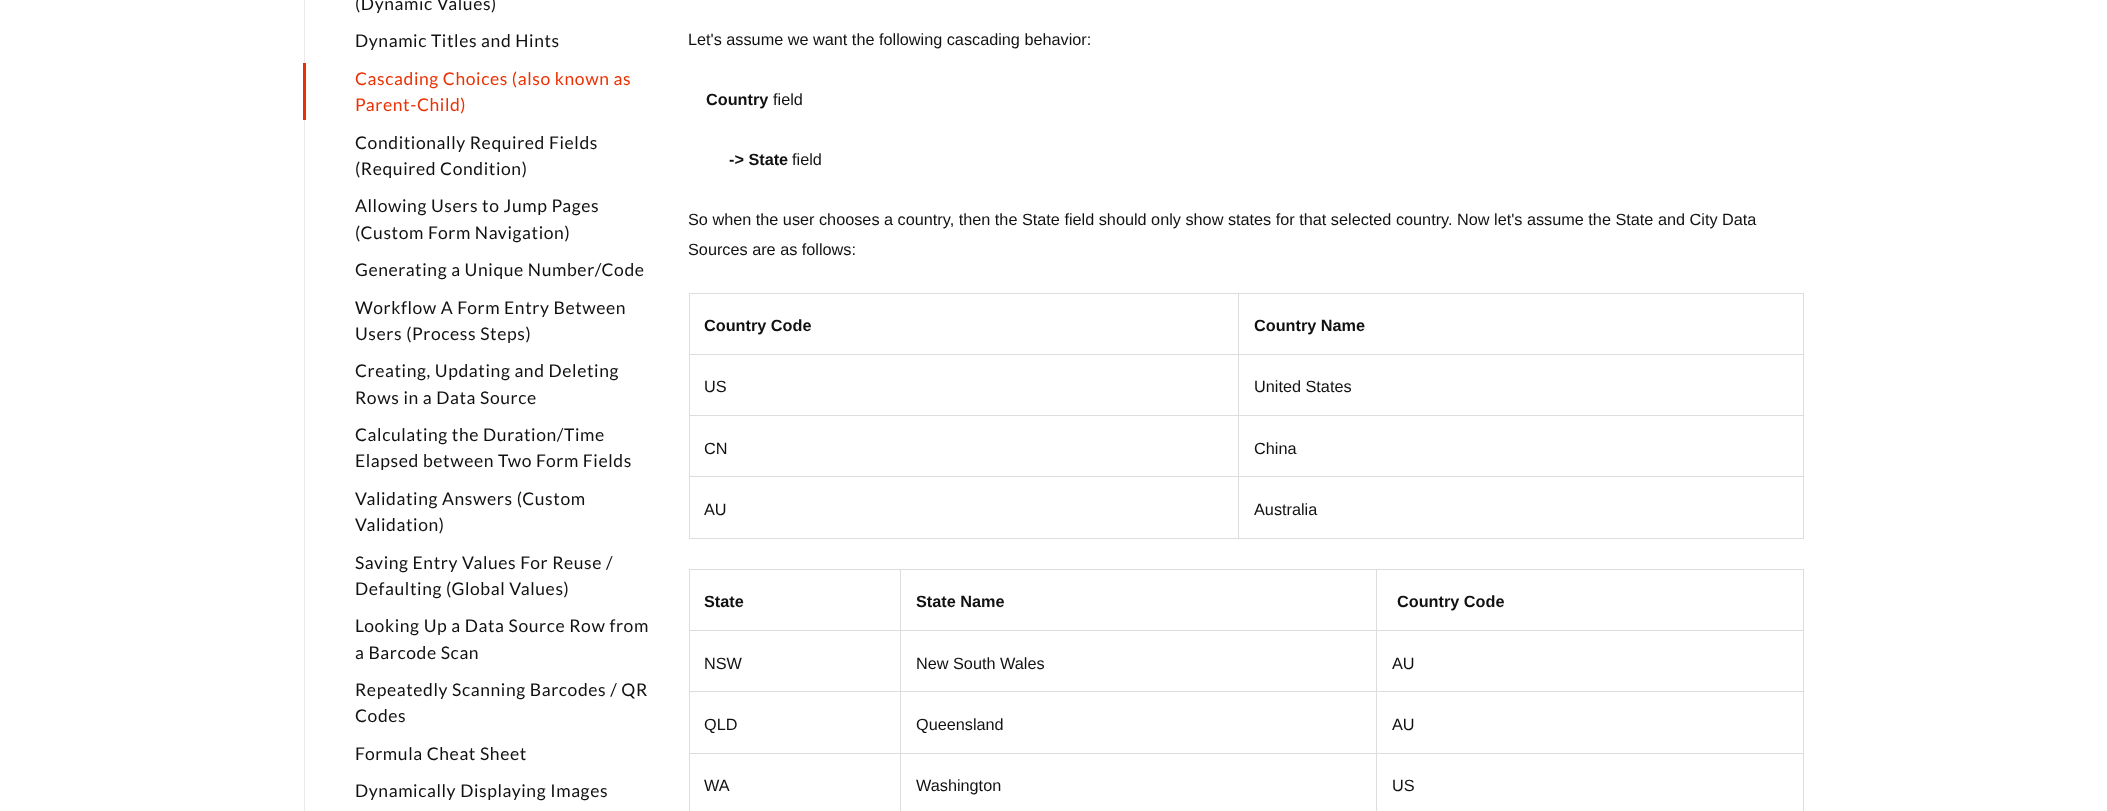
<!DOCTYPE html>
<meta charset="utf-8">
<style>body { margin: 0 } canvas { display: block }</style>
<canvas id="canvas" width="2107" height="811"></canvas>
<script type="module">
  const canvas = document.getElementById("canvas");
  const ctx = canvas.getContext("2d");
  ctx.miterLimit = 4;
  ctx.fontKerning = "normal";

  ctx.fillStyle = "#ffffff";
  ctx.fillRect(0, 0, 2107, 811);
  ctx.fillStyle = "#eaeaea";
  ctx.fillRect(304, 0, 1, 811);
  ctx.letterSpacing = "0.6px";
  ctx.font = "17.5px Lato";
  ctx.fillStyle = "#111111";
  ctx.fillText("(Dynamic Values)", 355, 10);
  ctx.fillText("Dynamic Titles and Hints", 355, 47);
  ctx.fillStyle = "#eb3104";
  ctx.fillRect(303, 63, 3, 57);
  ctx.fillText("Cascading Choices (also known as", 355, 85);
  ctx.fillText("Parent-Child)", 355, 111);
  ctx.fillStyle = "#111111";
  ctx.fillText("Conditionally Required Fields", 355, 149);
  ctx.fillText("(Required Condition)", 355, 175);
  ctx.fillText("Allowing Users to Jump Pages", 355, 212);
  ctx.fillText("(Custom Form Navigation)", 355, 239);
  ctx.fillText("Generating a Unique Number/Code", 355, 276);
  ctx.fillText("Workflow A Form Entry Between", 355, 314);
  ctx.fillText("Users (Process Steps)", 355, 340);
  ctx.fillText("Creating, Updating and Deleting", 355, 377);
  ctx.fillText("Rows in a Data Source", 355, 404);
  ctx.fillText("Calculating the Duration/Time", 355, 441);
  ctx.fillText("Elapsed between Two Form Fields", 355, 467);
  ctx.fillText("Validating Answers (Custom", 355, 505);
  ctx.fillText("Validation)", 355, 531);
  ctx.fillText("Saving Entry Values For Reuse /", 355, 569);
  ctx.fillText("Defaulting (Global Values)", 355, 595);
  ctx.fillText("Looking Up a Data Source Row from", 355, 632);
  ctx.fillText("a Barcode Scan", 355, 659);
  ctx.fillText("Repeatedly Scanning Barcodes / QR", 355, 696);
  ctx.fillText("Codes", 355, 722);
  ctx.fillText("Formula Cheat Sheet", 355, 760);
  ctx.fillText("Dynamically Displaying Images", 355, 797);
  ctx.letterSpacing = "0px";
  ctx.font = "16.25px Liberation Sans";
  ctx.fillText("Let's assume we want the following cascading behavior:", 688, 45);
  ctx.font = "bold 16.25px Liberation Sans";
  ctx.fillText("Country", 706, 105);
  ctx.font = "16.25px Liberation Sans";
  ctx.fillText("field", 773, 105);
  ctx.font = "bold 16.25px Liberation Sans";
  ctx.fillText("-> State", 729, 165);
  ctx.font = "16.25px Liberation Sans";
  ctx.fillText("field", 792, 165);
  ctx.fillText("So when the user chooses a country, then the State field should only show states for that selected country. Now let's assume the State and City Data", 688, 225);
  ctx.fillText("Sources are as follows:", 688, 255);
  ctx.fillStyle = "#dddddd";
  ctx.fillRect(689, 293, 1115, 1);
  ctx.font = "bold 16.25px Liberation Sans";
  ctx.fillStyle = "#111111";
  ctx.fillText("Country Code", 704, 331);
  ctx.fillStyle = "#dddddd";
  ctx.fillRect(1238, 354, 566, 1);
  ctx.fillRect(1238, 415, 566, 1);
  ctx.fillRect(1238, 476, 566, 1);
  ctx.fillRect(1803, 476, 1, 63);
  ctx.fillRect(1238, 538, 566, 1);
  ctx.fillRect(1238, 476, 1, 63);
  ctx.fillRect(689, 476, 550, 1);
  ctx.fillRect(1238, 415, 1, 63);
  ctx.fillRect(689, 415, 550, 1);
  ctx.fillRect(1238, 354, 1, 62);
  ctx.fillRect(689, 354, 550, 1);
  ctx.fillRect(1238, 293, 1, 62);
  ctx.fillStyle = "#111111";
  ctx.fillText("Country Name", 1254, 331);
  ctx.fillStyle = "#dddddd";
  ctx.fillRect(689, 538, 550, 1);
  ctx.fillRect(689, 476, 1, 63);
  ctx.fillRect(689, 415, 1, 63);
  ctx.fillRect(689, 293, 1, 123);
  ctx.font = "16.25px Liberation Sans";
  ctx.fillStyle = "#111111";
  ctx.fillText("US", 704, 392);
  ctx.fillStyle = "#dddddd";
  ctx.fillRect(1803, 415, 1, 63);
  ctx.fillRect(1803, 293, 1, 123);
  ctx.fillStyle = "#111111";
  ctx.fillText("United States", 1254, 392);
  ctx.fillText("CN", 704, 454);
  ctx.fillText("China", 1254, 454);
  ctx.fillText("AU", 704, 515);
  ctx.fillText("Australia", 1254, 515);
  ctx.fillStyle = "#dddddd";
  ctx.fillRect(689, 569, 1115, 1);
  ctx.font = "bold 16.25px Liberation Sans";
  ctx.fillStyle = "#111111";
  ctx.fillText("State", 704, 607);
  ctx.fillStyle = "#dddddd";
  ctx.fillRect(1376, 630, 428, 1);
  ctx.fillRect(1376, 691, 428, 1);
  ctx.fillRect(1376, 753, 428, 1);
  ctx.fillRect(1376, 753, 1, 58);
  ctx.fillRect(900, 753, 478, 1);
  ctx.fillRect(1376, 691, 1, 63);
  ctx.fillRect(900, 691, 478, 1);
  ctx.fillRect(1376, 630, 1, 63);
  ctx.fillRect(900, 630, 478, 1);
  ctx.fillRect(900, 753, 1, 58);
  ctx.fillRect(689, 753, 212, 1);
  ctx.fillRect(900, 691, 1, 63);
  ctx.fillRect(689, 691, 212, 1);
  ctx.fillRect(900, 630, 1, 63);
  ctx.fillRect(689, 630, 212, 1);
  ctx.fillRect(900, 569, 1, 62);
  ctx.fillStyle = "#111111";
  ctx.fillText("State Name", 916, 607);
  ctx.fillStyle = "#dddddd";
  ctx.fillRect(1376, 569, 1, 62);
  ctx.fillStyle = "#111111";
  ctx.fillText("Country Code", 1397, 607);
  ctx.fillStyle = "#dddddd";
  ctx.fillRect(689, 753, 1, 58);
  ctx.fillRect(689, 691, 1, 63);
  ctx.fillRect(689, 569, 1, 124);
  ctx.font = "16.25px Liberation Sans";
  ctx.fillStyle = "#111111";
  ctx.fillText("NSW", 704, 669);
  ctx.fillText("New South Wales", 916, 669);
  ctx.fillStyle = "#dddddd";
  ctx.fillRect(1803, 753, 1, 58);
  ctx.fillRect(1803, 691, 1, 63);
  ctx.fillRect(1803, 569, 1, 124);
  ctx.fillStyle = "#111111";
  ctx.fillText("AU", 1392, 669);
  ctx.fillText("QLD", 704, 730);
  ctx.fillText("Queensland", 916, 730);
  ctx.fillText("AU", 1392, 730);
  ctx.fillText("WA", 704, 791);
  ctx.fillText("Washington", 916, 791);
  ctx.fillText("US", 1392, 791);
</script>
